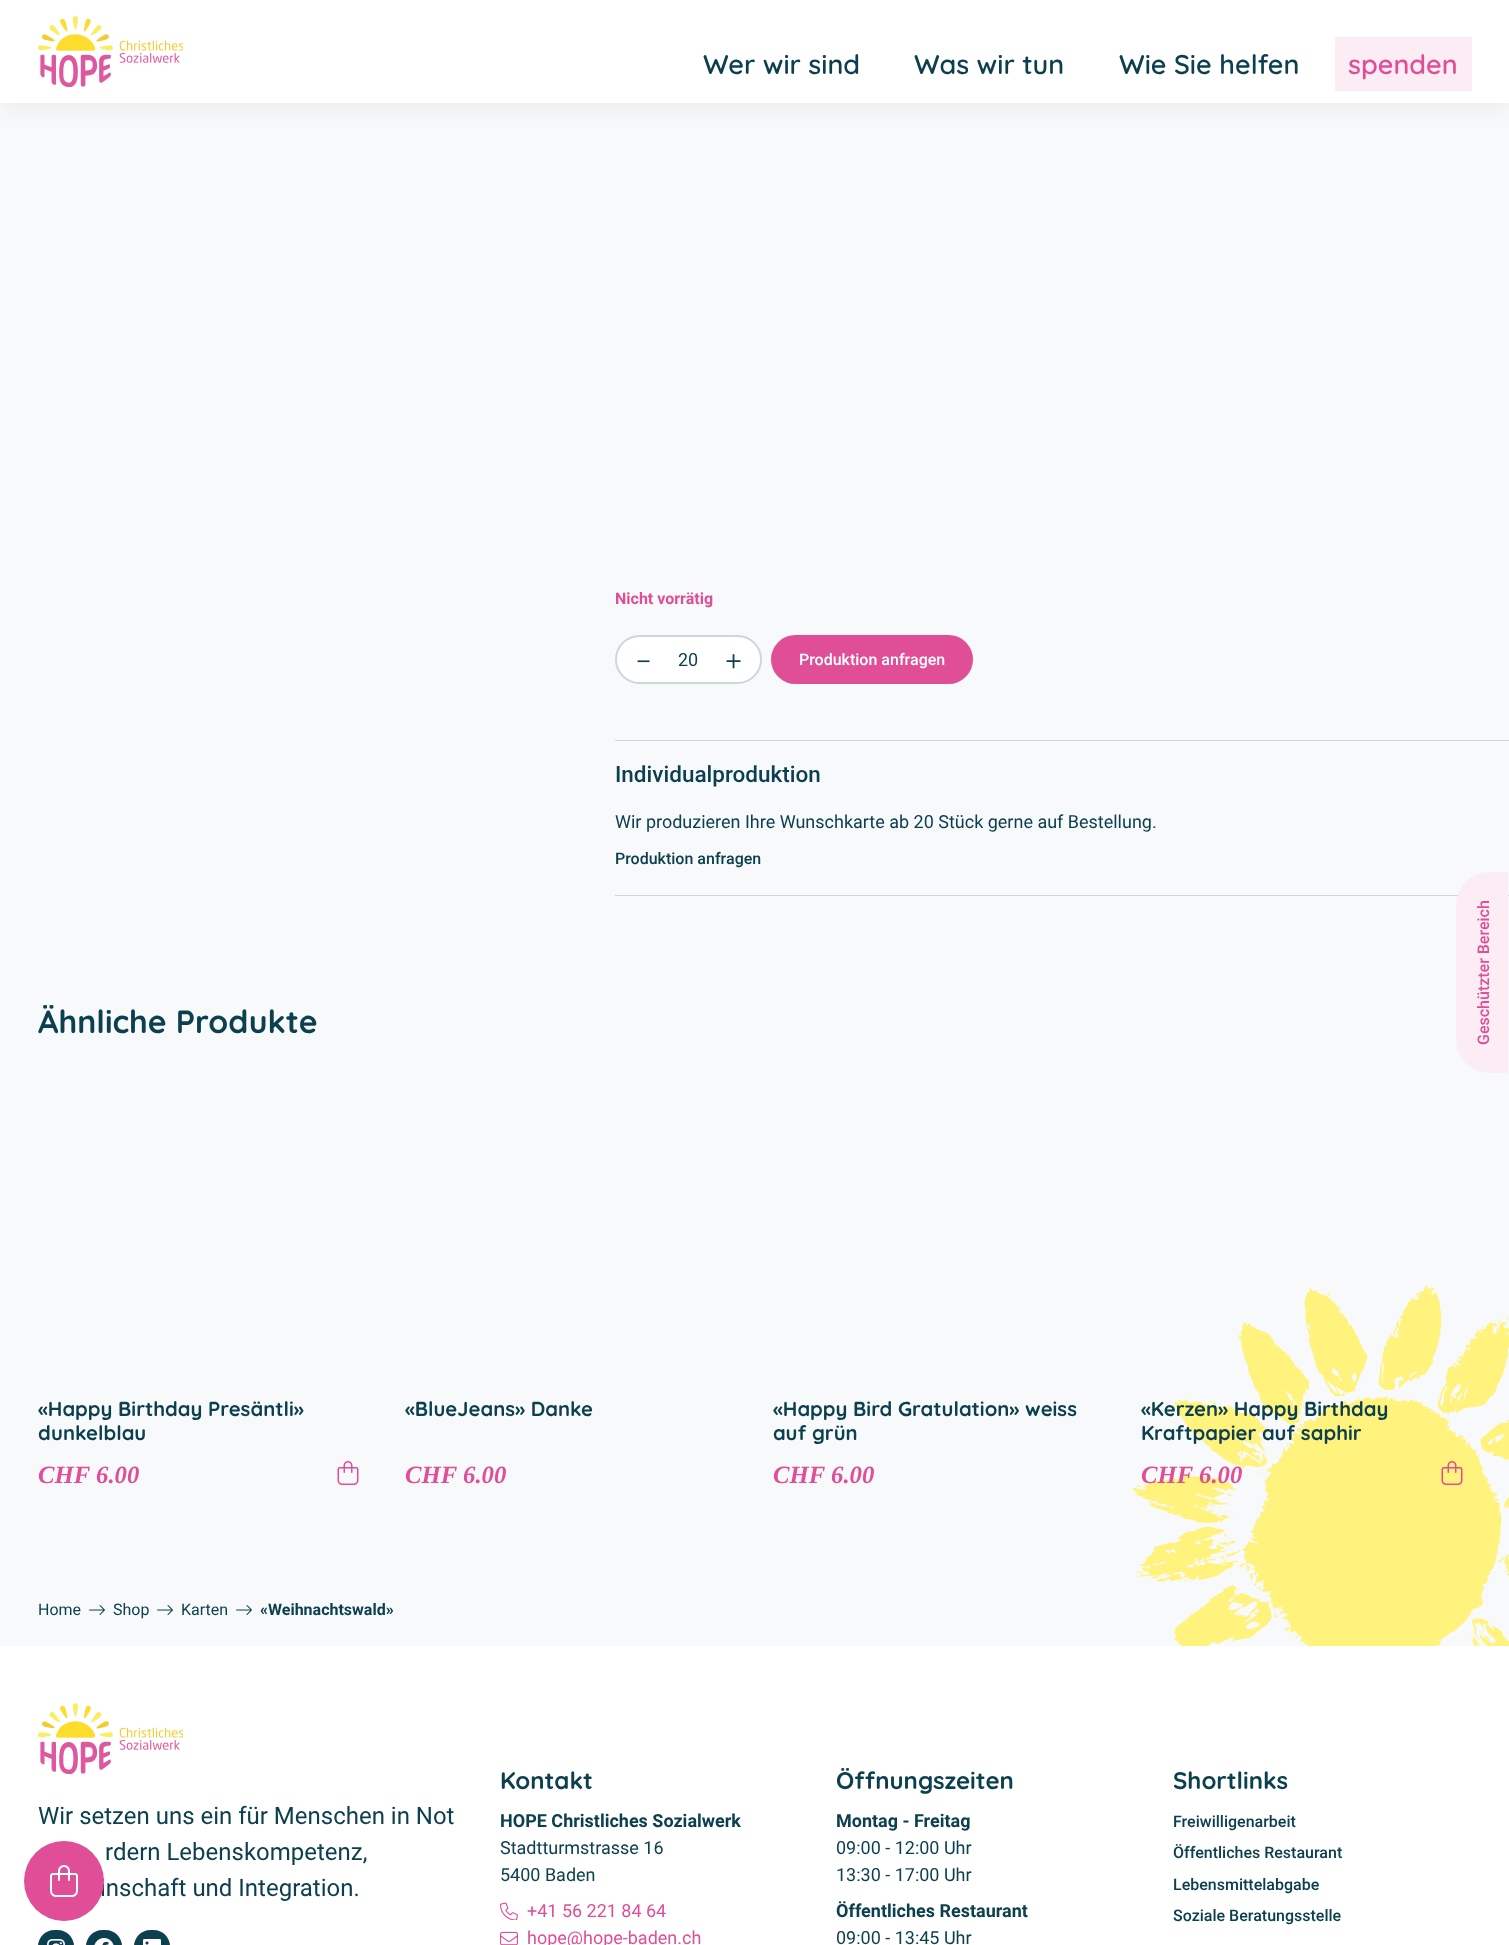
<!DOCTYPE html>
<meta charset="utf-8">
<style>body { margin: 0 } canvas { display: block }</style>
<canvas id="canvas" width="1509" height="1945"></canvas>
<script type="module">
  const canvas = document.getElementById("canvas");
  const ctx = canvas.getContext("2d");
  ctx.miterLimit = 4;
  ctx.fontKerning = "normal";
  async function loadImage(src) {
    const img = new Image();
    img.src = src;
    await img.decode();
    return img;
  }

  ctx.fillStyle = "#f8f9fa";
  ctx.fillRect(0, 0, 1509, 1945);
  ctx.fillStyle = "rgba(0, 0, 0, 0.05)";
  ctx.filter = "blur(12px)";
  ctx.beginPath();
  ctx.rect(0, 6, 1509, 103);
  ctx.fill();
  ctx.filter = "none";
  ctx.fillStyle = "#ffffff";
  ctx.fillRect(0, 0, 1509, 103);
  ctx.drawImage(await loadImage("img1.png"), 38, 16, 145, 71);
  ctx.font = "600 27px Quicksand";
  ctx.fillStyle = "#0d404f";
  ctx.fillText("Wer wir sind", 703, 74);
  ctx.fillText("Was wir tun", 914, 74);
  ctx.fillText("Wie Sie helfen", 1119, 74);
  ctx.fillStyle = "#fcedf5";
  ctx.fillRect(1335, 37, 137, 54);
  ctx.fillStyle = "#df4e96";
  ctx.fillText("spenden", 1348, 74);
  ctx.font = "bold 16px Roboto";
  ctx.fillText("Nicht vorrätig", 615, 604);
  ctx.fillStyle = "#ffffff";
  ctx.beginPath();
  ctx.roundRect(616, 636, 145, 47, 23.5);
  ctx.fill();
  ctx.strokeStyle = "#ccd7da";
  ctx.lineWidth = 2;
  ctx.stroke();
  ctx.font = "500 27px WenQuanYi Zen Hei";
  ctx.fillStyle = "#0d404f";
  ctx.fillText("－", 630, 669);
  ctx.font = "18px Roboto";
  ctx.fillText("20", 678, 666);
  ctx.font = "500 27px WenQuanYi Zen Hei";
  ctx.fillText("＋", 720, 669);
  ctx.fillStyle = "#df4e96";
  ctx.beginPath();
  ctx.roundRect(771, 635, 202, 49, 24.5);
  ctx.fill();
  ctx.font = "500 16px Roboto";
  ctx.fillStyle = "#ffffff";
  ctx.fillText("Produktion anfragen", 799, 665);
  ctx.fillStyle = "#ccd7da";
  ctx.fillRect(615, 740, 894, 1);
  ctx.fillRect(615, 895, 894, 1);
  ctx.font = "500 22.5px Roboto";
  ctx.fillStyle = "#0d404f";
  ctx.fillText("Individualproduktion", 615, 782);
  ctx.font = "18px Roboto";
  ctx.fillText("Wir produzieren Ihre Wunschkarte ab 20 Stück gerne auf Bestellung.", 615, 828);
  ctx.font = "500 16px Roboto";
  ctx.fillText("Produktion anfragen", 615, 864);
  ctx.font = "bold 32px Quicksand";
  ctx.fillText("Ähnliche Produkte", 38, 1033);
  ctx.font = "bold 20.25px Quicksand";
  ctx.fillText("«Happy Birthday Presäntli»", 38, 1416);
  ctx.fillText("dunkelblau", 38, 1440);
  ctx.font = "italic bold 24.75px Liberation Serif";
  ctx.fillStyle = "#df4e96";
  ctx.fillText("CHF 6.00", 38, 1483);
  ctx.drawImage(await loadImage("img2.png"), 337, 1461, 22, 24);
  ctx.font = "bold 20.25px Quicksand";
  ctx.fillStyle = "#0d404f";
  ctx.fillText("«BlueJeans» Danke", 405, 1416);
  ctx.font = "italic bold 24.75px Liberation Serif";
  ctx.fillStyle = "#df4e96";
  ctx.fillText("CHF 6.00", 405, 1483);
  ctx.font = "bold 20.25px Quicksand";
  ctx.fillStyle = "#0d404f";
  ctx.fillText("«Happy Bird Gratulation» weiss", 773, 1416);
  ctx.fillText("auf grün", 773, 1440);
  ctx.font = "italic bold 24.75px Liberation Serif";
  ctx.fillStyle = "#df4e96";
  ctx.fillText("CHF 6.00", 773, 1483);
  ctx.drawImage(await loadImage("img5.png"), 1132, 1284, 377, 362);
  ctx.font = "bold 20.25px Quicksand";
  ctx.fillStyle = "#0d404f";
  ctx.fillText("«Kerzen» Happy Birthday", 1141, 1416);
  ctx.fillText("Kraftpapier auf saphir", 1141, 1440);
  ctx.font = "italic bold 24.75px Liberation Serif";
  ctx.fillStyle = "#df4e96";
  ctx.fillText("CHF 6.00", 1141, 1483);
  ctx.drawImage(await loadImage("img3.png"), 1441, 1461, 22, 24);
  ctx.fillStyle = "#fcedf5";
  ctx.beginPath();
  ctx.moveTo(1456, 1039);
  ctx.lineTo(1456, 906);
  ctx.bezierCurveTo(1456, 887, 1471, 872, 1490, 872);
  ctx.lineTo(1508, 872);
  ctx.lineTo(1508, 1073);
  ctx.lineTo(1490, 1073);
  ctx.bezierCurveTo(1471, 1073, 1456, 1058, 1456, 1039);
  ctx.closePath();
  ctx.fill();
  ctx.font = "500 16px Roboto";
  ctx.fillStyle = "#df4e96";
  ctx.save();
  ctx.translate(1489, 1045);
  ctx.rotate(-90 * Math.PI / 180);
  ctx.fillText("Geschützter Bereich", 0, 0);
  ctx.restore();
  ctx.font = "16px Roboto";
  ctx.fillStyle = "#0d404f";
  ctx.fillText("Home", 38, 1615);
  ctx.drawImage(await loadImage("img4.png"), 89, 1605, 16, 10);
  ctx.fillText("Shop", 113, 1615);
  ctx.drawImage(await loadImage("img4.png"), 157, 1605, 16, 10);
  ctx.fillText("Karten", 181, 1615);
  ctx.drawImage(await loadImage("img4.png"), 236, 1605, 16, 10);
  ctx.font = "bold 16px Roboto";
  ctx.fillText("«Weihnachtswald»", 260, 1615);
  ctx.fillStyle = "#ffffff";
  ctx.fillRect(0, 1646, 1509, 299);
  ctx.drawImage(await loadImage("img1.png"), 38, 1703, 145, 71);
  ctx.font = "24px Roboto";
  ctx.fillStyle = "#0d404f";
  ctx.fillText("Wir setzen uns ein für Menschen in Not", 38, 1824);
  ctx.fillText("rdern Lebenskompetenz,", 105, 1860);
  ctx.fillText("inschaft und Integration.", 100, 1896);
  ctx.beginPath();
  ctx.roundRect(38, 1930, 36, 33, 18);
  ctx.fill();
  ctx.drawImage(await loadImage("img6.png"), 47, 1939, 18, 6);
  ctx.beginPath();
  ctx.roundRect(86, 1930, 36, 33, 18);
  ctx.fill();
  ctx.drawImage(await loadImage("img7.png"), 94, 1938, 20, 7);
  ctx.beginPath();
  ctx.roundRect(134, 1930, 36, 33, 18);
  ctx.fill();
  ctx.drawImage(await loadImage("img8.png"), 143, 1939, 18, 6);
  ctx.font = "bold 24px Quicksand";
  ctx.fillText("Kontakt", 500, 1789);
  ctx.font = "bold 18px Roboto";
  ctx.fillText("HOPE Christliches Sozialwerk", 500, 1827);
  ctx.font = "18px Roboto";
  ctx.fillText("Stadtturmstrasse 16", 500, 1854);
  ctx.fillText("5400 Baden", 500, 1881);
  ctx.drawImage(await loadImage("img9.png"), 500, 1902, 18, 18);
  ctx.fillStyle = "#df4e96";
  ctx.fillText("+41 56 221 84 64", 527, 1917);
  ctx.drawImage(await loadImage("img10.png"), 500, 1931, 18, 14);
  ctx.fillText("hope@hope-baden.ch", 527, 1944);
  ctx.font = "bold 24px Quicksand";
  ctx.fillStyle = "#0d404f";
  ctx.fillText("Öffnungszeiten", 836, 1789);
  ctx.font = "bold 18px Roboto";
  ctx.fillText("Montag - Freitag", 836, 1827);
  ctx.font = "18px Roboto";
  ctx.fillText("09:00 - 12:00 Uhr", 836, 1854);
  ctx.fillText("13:30 - 17:00 Uhr", 836, 1881);
  ctx.font = "bold 18px Roboto";
  ctx.fillText("Öffentliches Restaurant", 836, 1917);
  ctx.font = "18px Roboto";
  ctx.fillText("09:00 - 13:45 Uhr", 836, 1944);
  ctx.font = "bold 24px Quicksand";
  ctx.fillText("Shortlinks", 1173, 1789);
  ctx.font = "500 16px Roboto";
  ctx.fillText("Freiwilligenarbeit", 1173, 1827);
  ctx.fillText("Öffentliches Restaurant", 1173, 1858);
  ctx.fillText("Lebensmittelabgabe", 1173, 1890);
  ctx.fillText("Soziale Beratungsstelle", 1173, 1921);
  ctx.fillStyle = "#df4e96";
  ctx.beginPath();
  ctx.arc(64, 1881, 40, 0, Math.PI * 2);
  ctx.fill();
  ctx.drawImage(await loadImage("img11.png"), 50, 1865, 28, 32);
</script>
